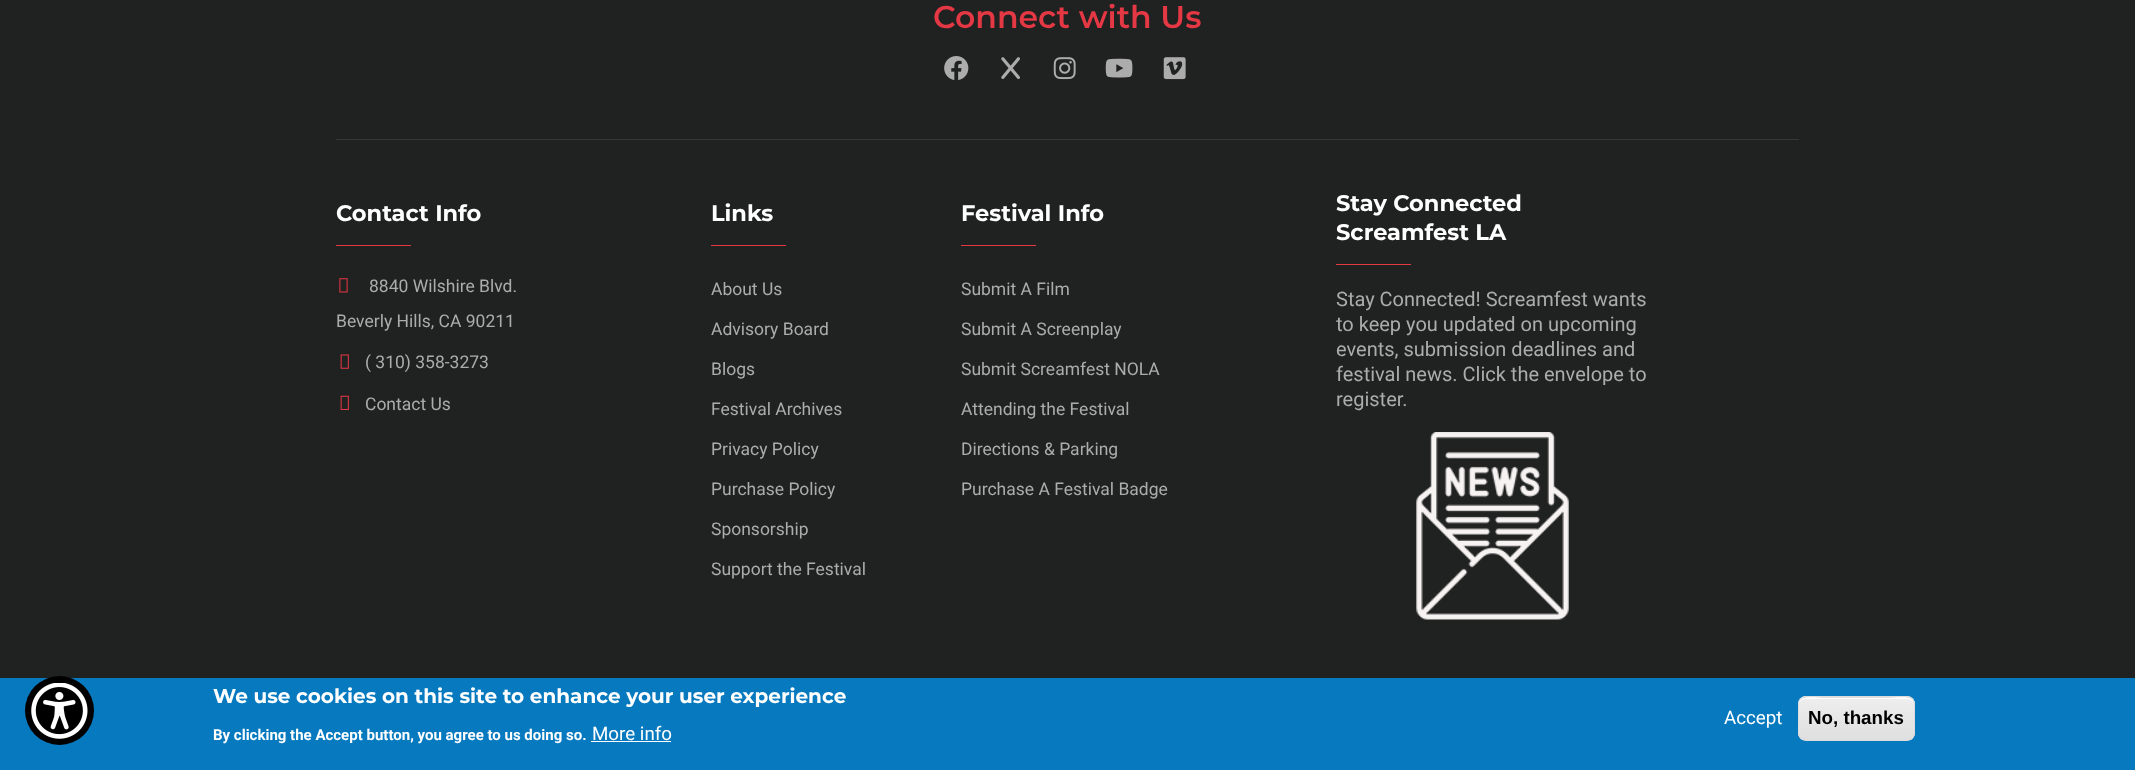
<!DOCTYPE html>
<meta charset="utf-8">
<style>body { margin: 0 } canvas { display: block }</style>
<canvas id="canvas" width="2135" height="770"></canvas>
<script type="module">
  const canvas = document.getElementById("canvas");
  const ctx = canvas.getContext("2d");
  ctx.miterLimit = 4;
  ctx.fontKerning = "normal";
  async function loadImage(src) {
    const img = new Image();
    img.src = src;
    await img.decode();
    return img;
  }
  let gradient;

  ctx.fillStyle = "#202121";
  ctx.fillRect(0, 0, 2135, 770);
  ctx.fillStyle = "#363737";
  ctx.fillRect(336, 139, 1463, 1);
  ctx.font = "600 31.5px Montserrat";
  ctx.fillStyle = "#e43844";
  ctx.fillText("Connect with Us", 933, 28);
  ctx.drawImage(await loadImage("img1.png"), 944, 56, 25, 24);
  ctx.drawImage(await loadImage("img2.png"), 1001, 57, 19, 22);
  ctx.drawImage(await loadImage("img3.png"), 1053, 57, 23, 23);
  ctx.drawImage(await loadImage("img4.png"), 1105, 58, 28, 20);
  ctx.drawImage(await loadImage("img5.png"), 1163, 57, 23, 23);
  ctx.font = "bold 22.5px Montserrat";
  ctx.fillStyle = "#ffffff";
  ctx.fillText("Contact Info", 336, 221);
  ctx.fillStyle = "#e43844";
  ctx.fillRect(336, 245, 75, 1);
  ctx.drawImage(await loadImage("img6.png"), 339, 278, 9, 15);
  ctx.font = "17.5px Roboto";
  ctx.fillStyle = "#acacac";
  ctx.fillText("8840 Wilshire Blvd.", 369, 292);
  ctx.fillText("Beverly Hills, CA 90211", 336, 327);
  ctx.drawImage(await loadImage("img7.png"), 340, 354, 9, 15);
  ctx.fillText("( 310) 358-3273", 365, 368);
  ctx.drawImage(await loadImage("img8.png"), 340, 395, 9, 15);
  ctx.fillText("Contact Us", 365, 410);
  ctx.font = "bold 22.5px Montserrat";
  ctx.fillStyle = "#ffffff";
  ctx.fillText("Links", 711, 221);
  ctx.fillStyle = "#e43844";
  ctx.fillRect(711, 245, 75, 1);
  ctx.font = "17.5px Roboto";
  ctx.fillStyle = "#acacac";
  ctx.fillText("About Us", 711, 295);
  ctx.fillText("Advisory Board", 711, 335);
  ctx.fillText("Blogs", 711, 375);
  ctx.fillText("Festival Archives", 711, 415);
  ctx.fillText("Privacy Policy", 711, 455);
  ctx.fillText("Purchase Policy", 711, 495);
  ctx.fillText("Sponsorship", 711, 535);
  ctx.fillText("Support the Festival", 711, 575);
  ctx.font = "bold 22.5px Montserrat";
  ctx.fillStyle = "#ffffff";
  ctx.fillText("Festival Info", 961, 221);
  ctx.fillStyle = "#e43844";
  ctx.fillRect(961, 245, 75, 1);
  ctx.font = "17.5px Roboto";
  ctx.fillStyle = "#acacac";
  ctx.fillText("Submit A Film", 961, 295);
  ctx.fillText("Submit A Screenplay", 961, 335);
  ctx.fillText("Submit Screamfest NOLA", 961, 375);
  ctx.fillText("Attending the Festival", 961, 415);
  ctx.fillText("Directions & Parking", 961, 455);
  ctx.fillText("Purchase A Festival Badge", 961, 495);
  ctx.font = "bold 22.5px Montserrat";
  ctx.fillStyle = "#ffffff";
  ctx.fillText("Stay Connected", 1336, 211);
  ctx.fillText("Screamfest LA", 1336, 240);
  ctx.fillStyle = "#e43844";
  ctx.fillRect(1336, 264, 75, 1);
  ctx.font = "20px Roboto";
  ctx.fillStyle = "#acacac";
  ctx.fillText("Stay Connected! Screamfest wants", 1336, 306);
  ctx.fillText("to keep you updated on upcoming", 1336, 331);
  ctx.fillText("events, submission deadlines and", 1336, 356);
  ctx.fillText("festival news. Click the envelope to", 1336, 381);
  ctx.fillText("register.", 1336, 406);
  ctx.drawImage(await loadImage("img9.png"), 1416, 432, 153, 188);
  ctx.fillStyle = "#0779bf";
  ctx.fillRect(0, 678, 2135, 92);
  ctx.fillStyle = "#000000";
  ctx.beginPath();
  ctx.arc(59.5, 710.5, 34.5, 0, Math.PI * 2);
  ctx.fill();
  ctx.drawImage(await loadImage("img10.png"), 31, 683, 57, 56);
  ctx.font = "bold 20px Montserrat";
  ctx.fillStyle = "#ffffff";
  ctx.fillText("We use cookies on this site to enhance your user experience", 213, 703);
  ctx.font = "bold 15px Roboto";
  ctx.fillText("By clicking the Accept button, you agree to us doing so.", 213, 740);
  ctx.font = "18.75px Roboto";
  ctx.fillText("More info", 592, 740);
  ctx.fillRect(591, 741, 80, 1);
  ctx.fillText("Accept", 1724, 724);
  ctx.save();
  ctx.beginPath();
  ctx.roundRect(1798, 696, 117, 45, 8);
  ctx.clip();
  gradient = ctx.createLinearGradient(1856, 655, 1856, 698);
  gradient.addColorStop(0.05, "#ededed");
  gradient.addColorStop(1, "#dfdfdf");
  ctx.fillStyle = gradient;
  ctx.fillRect(1798, 696, 117, 2);
  gradient = ctx.createLinearGradient(1856, 698, 1856, 740);
  gradient.addColorStop(0.05, "#ededed");
  gradient.addColorStop(1, "#dfdfdf");
  ctx.fillStyle = gradient;
  ctx.fillRect(1798, 698, 117, 42);
  ctx.restore();
  ctx.beginPath();
  ctx.moveTo(1805, 699);
  ctx.lineTo(1908, 699);
  ctx.bezierCurveTo(1911, 699, 1914, 702, 1914, 705);
  ctx.bezierCurveTo(1914, 694, 1897, 698, 1891, 698);
  ctx.lineTo(1822, 698);
  ctx.bezierCurveTo(1816, 698, 1799, 694, 1799, 705);
  ctx.bezierCurveTo(1799, 702, 1802, 699, 1805, 699);
  ctx.closePath();
  ctx.fill();
  ctx.beginPath();
  ctx.roundRect(1798.5, 696.5, 116, 44, 7.5);
  ctx.strokeStyle = "#dcdcdc";
  ctx.stroke();
  ctx.font = "bold 18.75px Liberation Sans";
  ctx.fillStyle = "#000000";
  ctx.fillText("No, thanks", 1808, 724);
</script>
